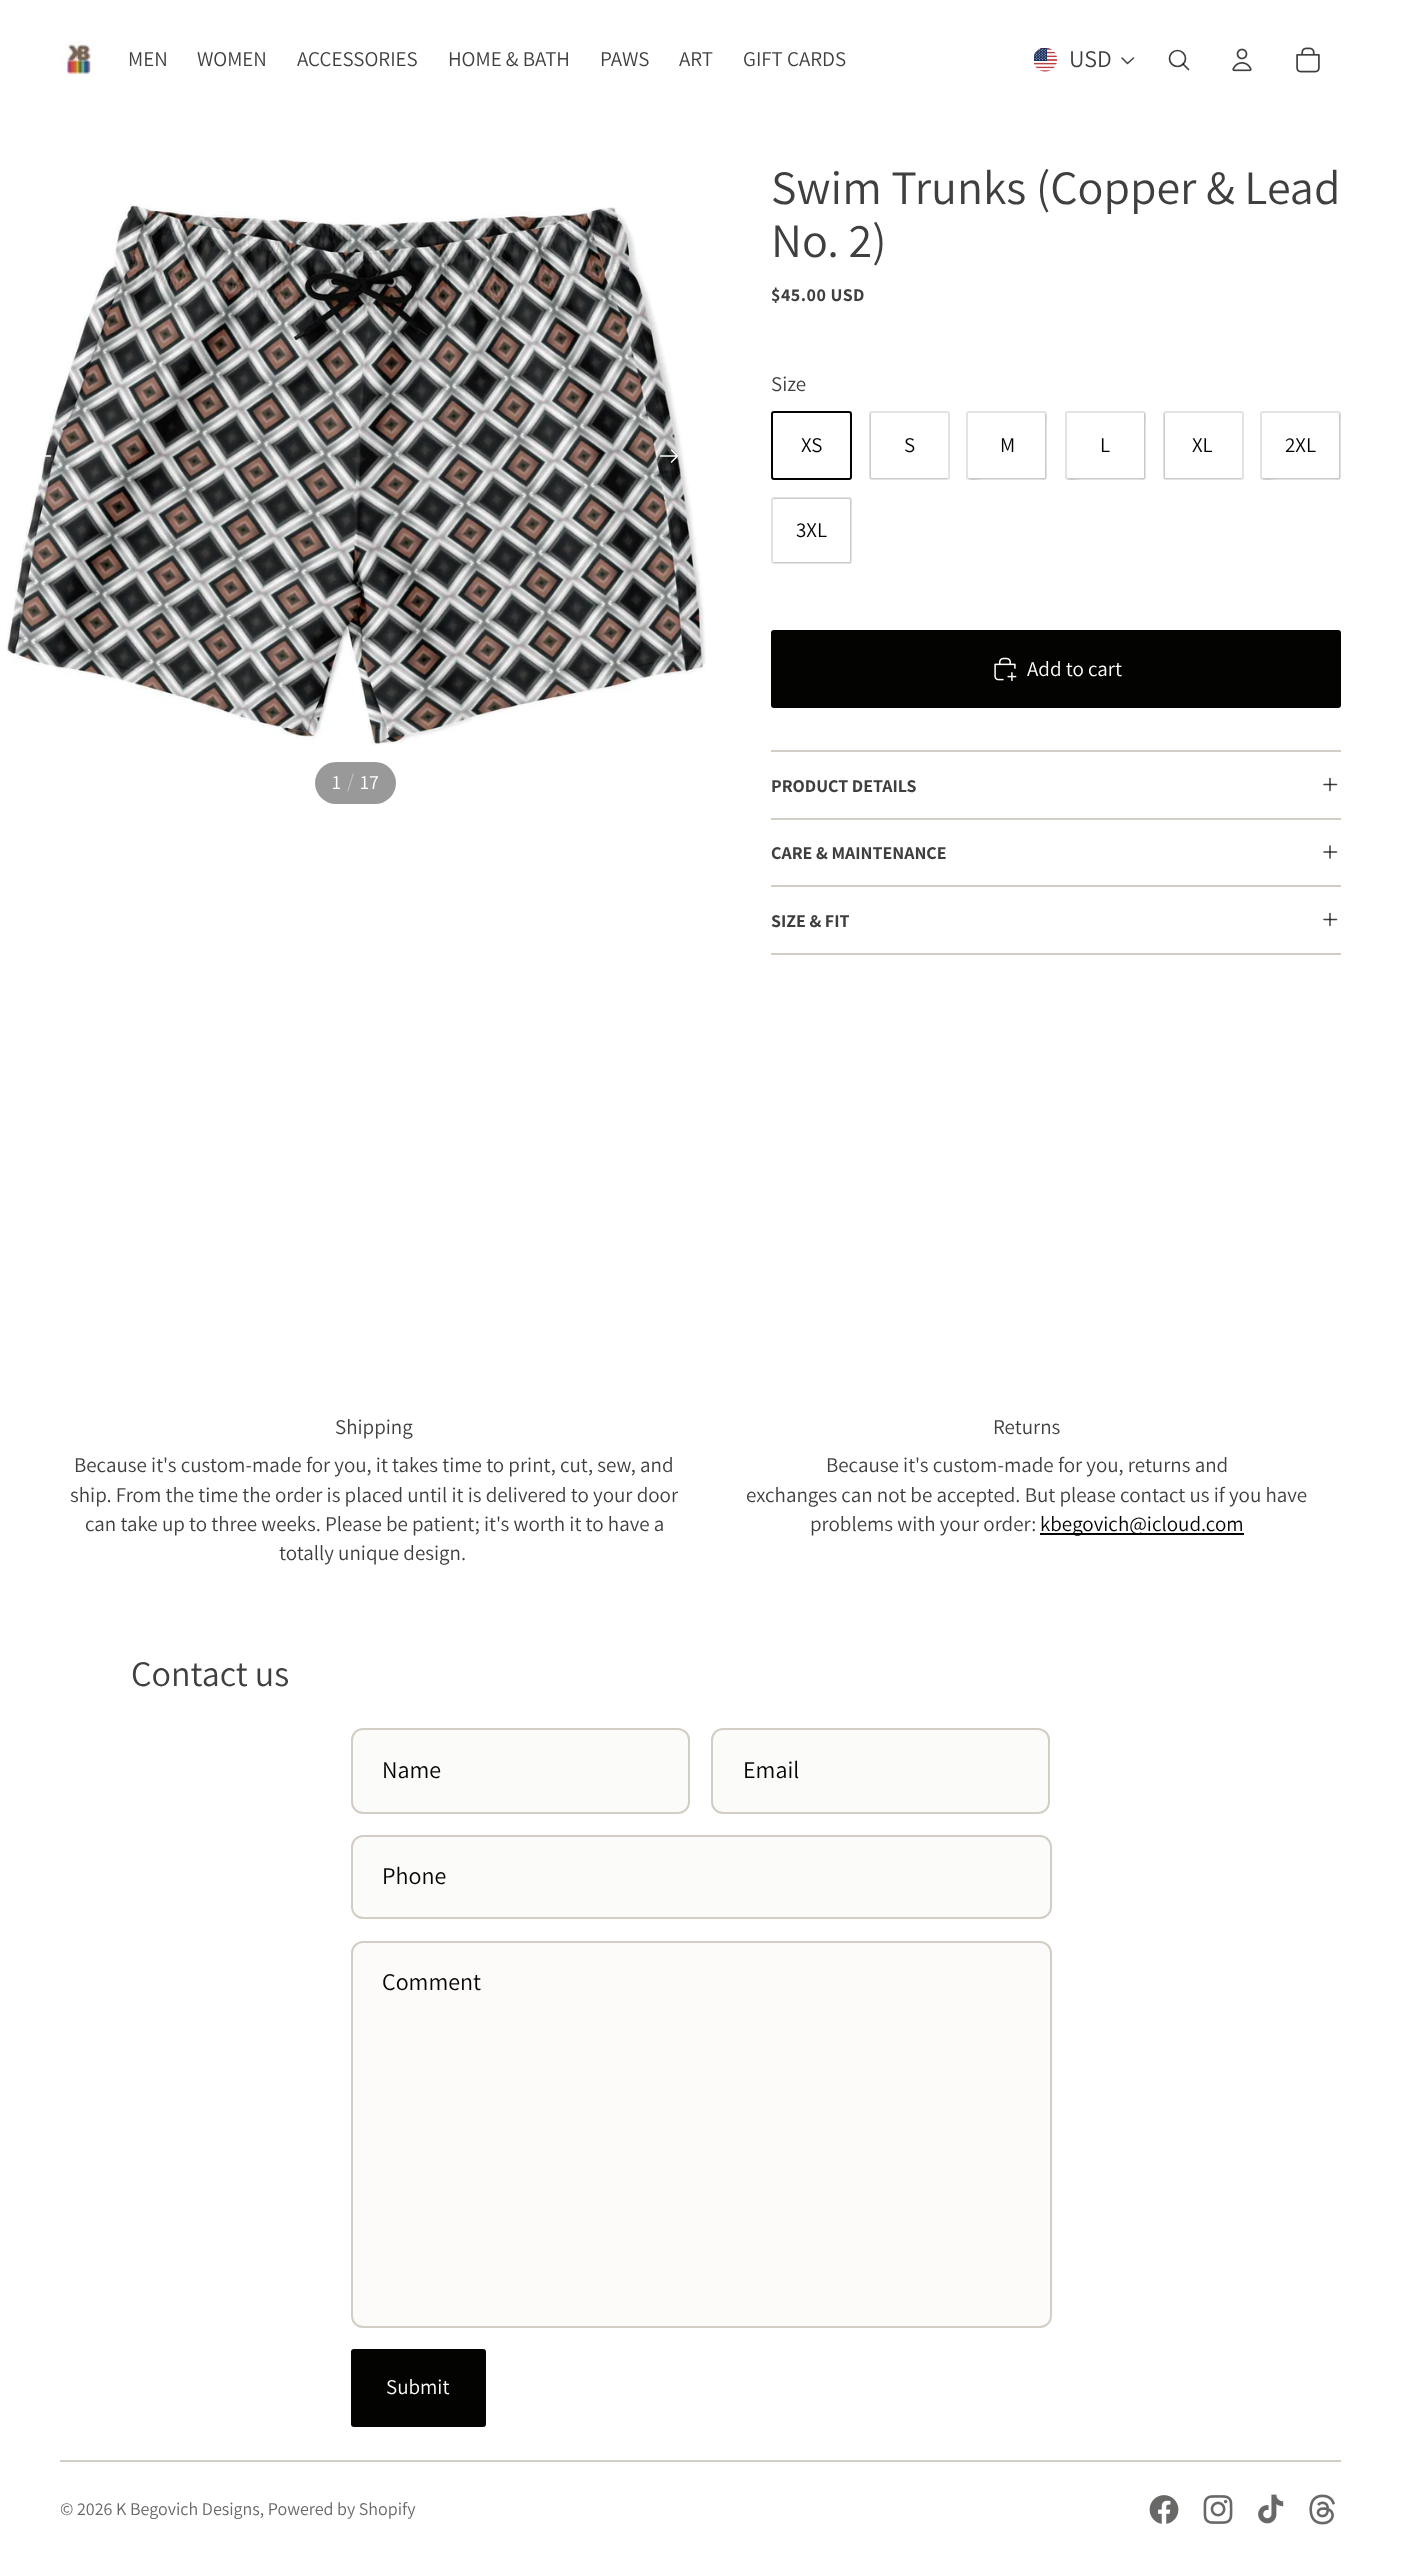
<!DOCTYPE html>
<meta charset="utf-8">
<style>body { margin: 0 } canvas { display: block }</style>
<canvas id="canvas" width="1401" height="2557"></canvas>
<script type="module">
  const canvas = document.getElementById("canvas");
  const ctx = canvas.getContext("2d");
  ctx.miterLimit = 4;
  ctx.fontKerning = "normal";
  async function loadImage(src) {
    const img = new Image();
    img.src = src;
    await img.decode();
    return img;
  }

  ctx.fillStyle = "#ffffff";
  ctx.fillRect(0, 0, 1401, 2557);
  ctx.drawImage(await loadImage("img1.png"), 60, 40, 36, 36);
  ctx.font = "21px Assistant";
  ctx.fillStyle = "#3f3f3f";
  ctx.fillText("MEN", 128, 66);
  ctx.fillText("WOMEN", 197, 66);
  ctx.fillText("ACCESSORIES", 297, 66);
  ctx.fillText("HOME & BATH", 448, 66);
  ctx.fillText("PAWS", 600, 66);
  ctx.fillText("ART", 679, 66);
  ctx.fillText("GIFT CARDS", 743, 66);
  ctx.drawImage(await loadImage("img2.png"), 1034, 48, 24, 24);
  ctx.font = "24px Assistant";
  ctx.fillText("USD", 1069, 67);
  ctx.beginPath();
  ctx.moveTo(1133.5, 58);
  ctx.lineTo(1127.5, 63.5);
  ctx.lineTo(1122, 58);
  ctx.strokeStyle = "#3f3f3f";
  ctx.lineWidth = 1.5;
  ctx.lineCap = "round";
  ctx.lineJoin = "round";
  ctx.stroke();
  ctx.beginPath();
  ctx.arc(1177.5, 58.5, 8, 0, Math.PI * 2);
  ctx.lineWidth = 1.7;
  ctx.stroke();
  ctx.beginPath();
  ctx.moveTo(1183, 64);
  ctx.lineTo(1188.5, 69.5);
  ctx.strokeStyle = "rgba(3, 3, 2, 0.76)";
  ctx.stroke();
  ctx.drawImage(await loadImage("img3.png"), 1232, 48, 20, 24);
  ctx.drawImage(await loadImage("img4.png"), 1296, 47, 24, 26);
  ctx.drawImage(await loadImage("img5.png"), 7, 204, 699, 541);
  ctx.beginPath();
  ctx.moveTo(50.5, 456);
  ctx.lineTo(33.5, 456);
  ctx.moveTo(33.5, 456);
  ctx.lineTo(39.5, 450);
  ctx.moveTo(33.5, 456);
  ctx.lineTo(39.5, 462);
  ctx.strokeStyle = "#ffffff";
  ctx.lineWidth = 1.5;
  ctx.stroke();
  ctx.beginPath();
  ctx.moveTo(660.5, 456);
  ctx.lineTo(677.5, 456);
  ctx.moveTo(677.5, 456);
  ctx.lineTo(671.5, 450);
  ctx.moveTo(677.5, 456);
  ctx.lineTo(671.5, 462);
  ctx.stroke();
  ctx.fillStyle = "#999999";
  ctx.beginPath();
  ctx.roundRect(315, 762, 81, 42, 21);
  ctx.fill();
  ctx.font = "20px Assistant";
  ctx.fillStyle = "#ffffff";
  ctx.fillText("1", 332, 789);
  ctx.fillStyle = "#c2c2c2";
  ctx.fillText("/", 347, 788);
  ctx.fillStyle = "#ffffff";
  ctx.fillText("17", 360, 789);
  ctx.font = "48px Assistant";
  ctx.fillStyle = "#3f3f3f";
  ctx.fillText("Swim Trunks (Copper & Lead", 771, 204);
  ctx.fillText("No. 2)", 771, 257);
  ctx.letterSpacing = "0.5px";
  ctx.font = "bold 18px Assistant";
  ctx.fillText("$45.00 USD", 771, 301);
  ctx.letterSpacing = "0px";
  ctx.font = "21px Assistant";
  ctx.fillText("Size", 771, 391);
  ctx.beginPath();
  ctx.roundRect(772, 412, 79, 67, 2);
  ctx.strokeStyle = "#030302";
  ctx.lineWidth = 2;
  ctx.lineJoin = "miter";
  ctx.stroke();
  ctx.fillStyle = "#030302";
  ctx.beginPath();
  ctx.moveTo(773, 477);
  ctx.bezierCurveTo(773, 482, 783, 479, 787, 479);
  ctx.lineTo(837, 479);
  ctx.bezierCurveTo(854, 479, 851, 483, 851, 467);
  ctx.lineTo(851, 425);
  ctx.bezierCurveTo(851, 421, 853, 413, 849, 413);
  ctx.bezierCurveTo(850, 413, 850, 413, 850, 414);
  ctx.lineTo(850, 477);
  ctx.bezierCurveTo(850, 478, 850, 478, 849, 478);
  ctx.lineTo(774, 478);
  ctx.bezierCurveTo(773, 478, 773, 478, 773, 477);
  ctx.closePath();
  ctx.fill();
  ctx.fillText("XS", 801, 452);
  ctx.beginPath();
  ctx.roundRect(870, 412, 79, 67, 2);
  ctx.strokeStyle = "#e3e3e3";
  ctx.stroke();
  ctx.fillStyle = "#cacaca";
  ctx.beginPath();
  ctx.moveTo(872, 413);
  ctx.bezierCurveTo(871, 413, 870, 414, 870, 414);
  ctx.lineTo(870, 478);
  ctx.bezierCurveTo(870, 478, 871, 479, 872, 479);
  ctx.lineTo(946, 479);
  ctx.bezierCurveTo(947, 479, 948, 478, 948, 478);
  ctx.lineTo(948, 477);
  ctx.bezierCurveTo(948, 478, 948, 478, 947, 478);
  ctx.lineTo(872, 478);
  ctx.bezierCurveTo(871, 478, 871, 478, 871, 477);
  ctx.lineTo(871, 414);
  ctx.bezierCurveTo(871, 413, 871, 413, 872, 413);
  ctx.closePath();
  ctx.fill();
  ctx.fillStyle = "#030302";
  ctx.fillText("S", 904, 452);
  ctx.beginPath();
  ctx.roundRect(967, 412, 79, 67, 2);
  ctx.stroke();
  ctx.fillStyle = "#cacaca";
  ctx.beginPath();
  ctx.moveTo(968, 477);
  ctx.bezierCurveTo(968, 482, 978, 479, 982, 479);
  ctx.lineTo(1032, 479);
  ctx.bezierCurveTo(1049, 479, 1046, 483, 1046, 467);
  ctx.lineTo(1046, 425);
  ctx.bezierCurveTo(1046, 421, 1048, 413, 1044, 413);
  ctx.bezierCurveTo(1045, 413, 1045, 413, 1045, 414);
  ctx.lineTo(1045, 477);
  ctx.bezierCurveTo(1045, 478, 1045, 478, 1044, 478);
  ctx.lineTo(969, 478);
  ctx.bezierCurveTo(968, 478, 968, 478, 968, 477);
  ctx.closePath();
  ctx.fill();
  ctx.fillStyle = "#030302";
  ctx.fillText("M", 1000, 452);
  ctx.beginPath();
  ctx.roundRect(1066, 412, 79, 67, 2);
  ctx.stroke();
  ctx.fillStyle = "#cacaca";
  ctx.beginPath();
  ctx.moveTo(1067, 477);
  ctx.bezierCurveTo(1067, 482, 1077, 479, 1081, 479);
  ctx.lineTo(1131, 479);
  ctx.bezierCurveTo(1148, 479, 1145, 483, 1145, 467);
  ctx.lineTo(1145, 425);
  ctx.bezierCurveTo(1145, 421, 1147, 413, 1143, 413);
  ctx.bezierCurveTo(1144, 413, 1144, 413, 1144, 414);
  ctx.lineTo(1144, 477);
  ctx.bezierCurveTo(1144, 478, 1144, 478, 1143, 478);
  ctx.lineTo(1068, 478);
  ctx.bezierCurveTo(1067, 478, 1067, 478, 1067, 477);
  ctx.closePath();
  ctx.fill();
  ctx.fillStyle = "#030302";
  ctx.fillText("L", 1100, 452);
  ctx.beginPath();
  ctx.roundRect(1164, 412, 79, 67, 2);
  ctx.stroke();
  ctx.fillStyle = "#cacaca";
  ctx.beginPath();
  ctx.moveTo(1166, 413);
  ctx.bezierCurveTo(1165, 413, 1164, 414, 1164, 414);
  ctx.lineTo(1164, 478);
  ctx.bezierCurveTo(1164, 478, 1165, 479, 1166, 479);
  ctx.lineTo(1240, 479);
  ctx.bezierCurveTo(1241, 479, 1242, 478, 1242, 478);
  ctx.lineTo(1242, 477);
  ctx.bezierCurveTo(1242, 478, 1242, 478, 1241, 478);
  ctx.lineTo(1166, 478);
  ctx.bezierCurveTo(1165, 478, 1165, 478, 1165, 477);
  ctx.lineTo(1165, 414);
  ctx.bezierCurveTo(1165, 413, 1165, 413, 1166, 413);
  ctx.closePath();
  ctx.fill();
  ctx.fillStyle = "#030302";
  ctx.fillText("XL", 1192, 452);
  ctx.beginPath();
  ctx.roundRect(1261, 412, 79, 67, 2);
  ctx.stroke();
  ctx.fillStyle = "#cacaca";
  ctx.beginPath();
  ctx.moveTo(1262, 477);
  ctx.bezierCurveTo(1262, 482, 1272, 479, 1276, 479);
  ctx.lineTo(1326, 479);
  ctx.bezierCurveTo(1343, 479, 1340, 483, 1340, 467);
  ctx.lineTo(1340, 425);
  ctx.bezierCurveTo(1340, 421, 1342, 413, 1338, 413);
  ctx.bezierCurveTo(1339, 413, 1339, 413, 1339, 414);
  ctx.lineTo(1339, 477);
  ctx.bezierCurveTo(1339, 478, 1339, 478, 1338, 478);
  ctx.lineTo(1263, 478);
  ctx.bezierCurveTo(1262, 478, 1262, 478, 1262, 477);
  ctx.closePath();
  ctx.fill();
  ctx.fillStyle = "#030302";
  ctx.fillText("2XL", 1285, 452);
  ctx.beginPath();
  ctx.roundRect(772, 498, 79, 65, 2);
  ctx.stroke();
  ctx.fillStyle = "#cacaca";
  ctx.beginPath();
  ctx.moveTo(774, 499);
  ctx.lineTo(849, 499);
  ctx.bezierCurveTo(850, 499, 850, 499, 850, 500);
  ctx.lineTo(850, 561);
  ctx.bezierCurveTo(850, 562, 850, 562, 849, 562);
  ctx.lineTo(774, 562);
  ctx.bezierCurveTo(773, 562, 773, 562, 773, 561);
  ctx.lineTo(773, 562);
  ctx.bezierCurveTo(773, 562, 774, 563, 774, 563);
  ctx.lineTo(850, 563);
  ctx.bezierCurveTo(850, 563, 851, 562, 851, 562);
  ctx.lineTo(851, 500);
  ctx.bezierCurveTo(851, 499, 850, 498, 850, 498);
  ctx.lineTo(774, 498);
  ctx.bezierCurveTo(774, 498, 773, 499, 773, 500);
  ctx.closePath();
  ctx.fill();
  ctx.fillStyle = "#030302";
  ctx.fillText("3XL", 796, 537);
  ctx.beginPath();
  ctx.roundRect(772, 631, 568, 76, 2);
  ctx.fill();
  ctx.strokeStyle = "#030302";
  ctx.stroke();
  ctx.drawImage(await loadImage("img6.png"), 994, 657, 23, 25);
  ctx.fillStyle = "#ffffff";
  ctx.fillText("Add to cart", 1027, 676);
  ctx.fillStyle = "#d3cec5";
  ctx.fillRect(771, 750, 570, 2);
  ctx.font = "bold 18px Assistant";
  ctx.fillStyle = "#3f3f3f";
  ctx.fillText("PRODUCT DETAILS", 771, 792);
  ctx.beginPath();
  ctx.moveTo(1324, 784.5);
  ctx.lineTo(1336.5, 784.5);
  ctx.strokeStyle = "#3f3f3f";
  ctx.lineWidth = 1.5;
  ctx.stroke();
  ctx.beginPath();
  ctx.moveTo(1330, 778.5);
  ctx.lineTo(1330, 790.5);
  ctx.strokeStyle = "rgba(3, 3, 2, 0.76)";
  ctx.stroke();
  ctx.fillStyle = "#d3cec5";
  ctx.fillRect(771, 818, 570, 2);
  ctx.fillStyle = "#3f3f3f";
  ctx.fillText("CARE & MAINTENANCE", 771, 859);
  ctx.beginPath();
  ctx.moveTo(1324, 852);
  ctx.lineTo(1336.5, 852);
  ctx.strokeStyle = "#3f3f3f";
  ctx.stroke();
  ctx.beginPath();
  ctx.moveTo(1330, 846);
  ctx.lineTo(1330, 858);
  ctx.strokeStyle = "rgba(3, 3, 2, 0.76)";
  ctx.stroke();
  ctx.fillStyle = "#d3cec5";
  ctx.fillRect(771, 885, 570, 2);
  ctx.fillRect(771, 953, 570, 2);
  ctx.fillStyle = "#3f3f3f";
  ctx.fillText("SIZE & FIT", 771, 927);
  ctx.beginPath();
  ctx.moveTo(1324, 919.5);
  ctx.lineTo(1336.5, 919.5);
  ctx.strokeStyle = "#3f3f3f";
  ctx.stroke();
  ctx.beginPath();
  ctx.moveTo(1330, 913.5);
  ctx.lineTo(1330, 925.5);
  ctx.strokeStyle = "rgba(3, 3, 2, 0.76)";
  ctx.stroke();
  ctx.font = "21px Assistant";
  ctx.fillText("Shipping", 335, 1434);
  ctx.fillText("Because it's custom-made for you, it takes time to print, cut, sew, and", 74, 1472);
  ctx.fillText("ship. From the time the order is placed until it is delivered to your door", 70, 1502);
  ctx.fillText("can take up to three weeks. Please be patient; it's worth it to have a", 85, 1531);
  ctx.fillText("totally unique design.", 279, 1560);
  ctx.fillText("Returns", 993, 1434);
  ctx.fillText("Because it's custom-made for you, returns and", 826, 1472);
  ctx.fillText("exchanges can not be accepted. But please contact us if you have", 746, 1502);
  ctx.fillText("problems with your order:", 810, 1531);
  ctx.fillStyle = "#030302";
  ctx.fillRect(1040, 1533, 204, 2);
  ctx.fillText("kbegovich@icloud.com", 1040, 1531);
  ctx.font = "36px Assistant";
  ctx.fillStyle = "#3f3f3f";
  ctx.fillText("Contact us", 131, 1686);
  ctx.fillStyle = "#fbfbfa";
  ctx.beginPath();
  ctx.roundRect(352, 1729, 337, 84, 11);
  ctx.fill();
  ctx.strokeStyle = "#d3cec5";
  ctx.lineWidth = 2;
  ctx.stroke();
  ctx.font = "24px Assistant";
  ctx.fillStyle = "#030302";
  ctx.fillText("Name", 382, 1778);
  ctx.fillStyle = "#fbfbfa";
  ctx.beginPath();
  ctx.roundRect(712, 1729, 337, 84, 11);
  ctx.fill();
  ctx.stroke();
  ctx.fillStyle = "#030302";
  ctx.fillText("Email", 743, 1778);
  ctx.fillStyle = "#fbfbfa";
  ctx.beginPath();
  ctx.roundRect(352, 1836, 699, 82, 11);
  ctx.fill();
  ctx.stroke();
  ctx.fillStyle = "#030302";
  ctx.fillText("Phone", 382, 1884);
  ctx.fillStyle = "#fcfbfa";
  ctx.beginPath();
  ctx.roundRect(352, 1942, 699, 385, 11);
  ctx.fill();
  ctx.stroke();
  ctx.fillStyle = "#030302";
  ctx.fillText("Comment", 382, 1990);
  ctx.beginPath();
  ctx.roundRect(352, 2350, 133, 76, 2);
  ctx.fill();
  ctx.strokeStyle = "#030302";
  ctx.stroke();
  ctx.font = "21px Assistant";
  ctx.fillStyle = "#ffffff";
  ctx.fillText("Submit", 386, 2394);
  ctx.fillStyle = "#d3cec5";
  ctx.fillRect(60, 2460, 1281, 2);
  ctx.font = "18px Assistant";
  ctx.fillStyle = "#686867";
  ctx.fillText("© 2026 K Begovich Designs, Powered by Shopify", 60, 2515);
  ctx.drawImage(await loadImage("img7.png"), 1149, 2495, 30, 29);
  ctx.drawImage(await loadImage("img8.png"), 1203, 2495, 30, 29);
  ctx.drawImage(await loadImage("img9.png"), 1258, 2494, 26, 30);
  ctx.drawImage(await loadImage("img10.png"), 1309, 2494, 26, 31);
</script>
